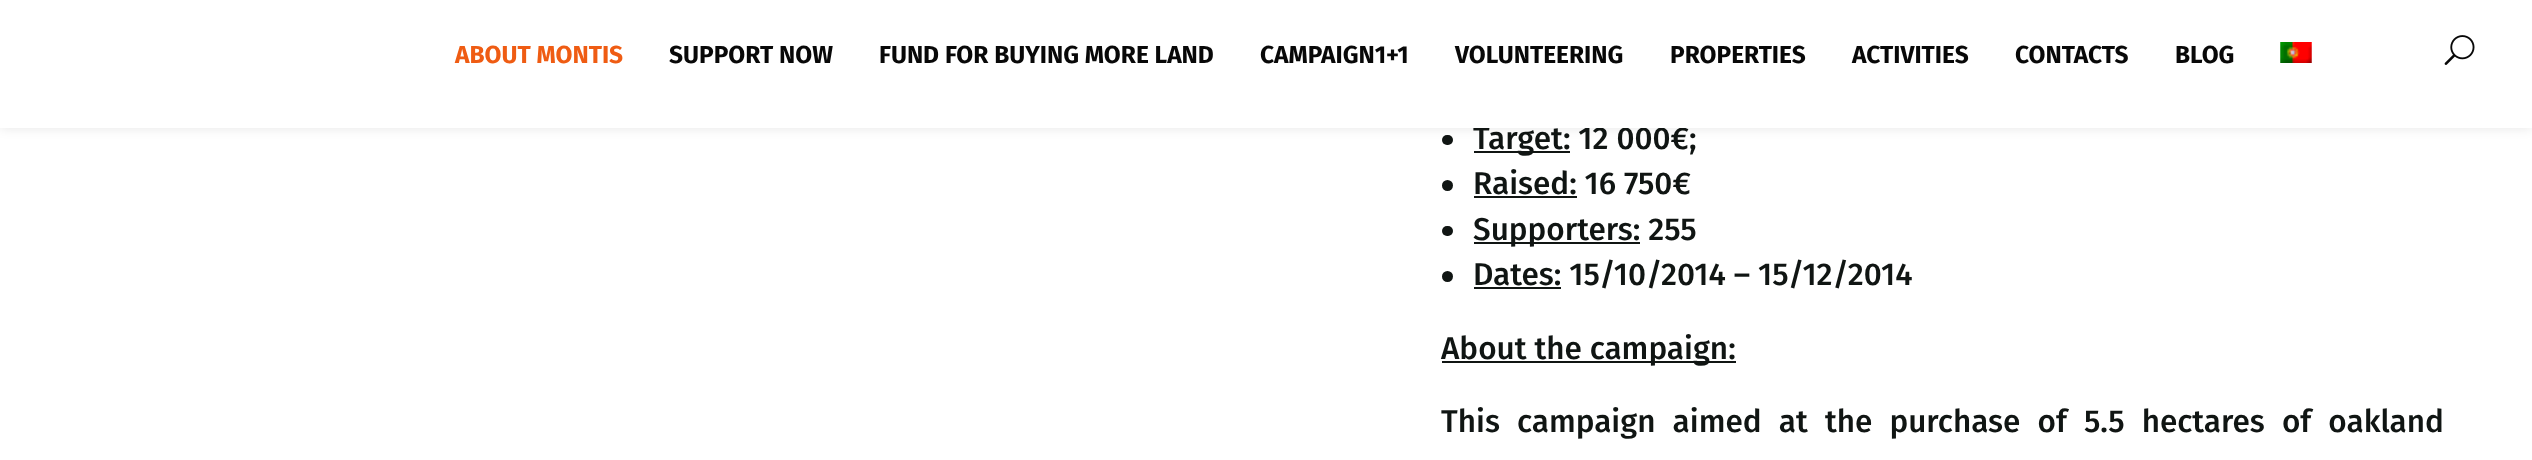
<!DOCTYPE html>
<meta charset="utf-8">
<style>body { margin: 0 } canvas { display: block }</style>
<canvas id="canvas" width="2532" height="460"></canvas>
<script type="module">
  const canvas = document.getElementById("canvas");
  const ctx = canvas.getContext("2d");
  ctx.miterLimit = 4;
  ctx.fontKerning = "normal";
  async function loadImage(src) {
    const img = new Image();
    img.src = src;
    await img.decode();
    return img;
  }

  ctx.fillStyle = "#ffffff";
  ctx.fillRect(0, 0, 2532, 460);
  ctx.fillStyle = "#101513";
  ctx.beginPath();
  ctx.roundRect(1442, 135, 11, 10, 5);
  ctx.fill();
  ctx.fillStyle = "rgba(0, 0, 0, 0.1)";
  ctx.filter = "blur(6px)";
  ctx.beginPath();
  ctx.rect(0, 0, 2532, 128);
  ctx.fill();
  ctx.filter = "none";
  ctx.fillStyle = "#101513";
  ctx.fillRect(1474, 151, 96, 2);
  ctx.font = "500 31.5px Fira Sans";
  ctx.fillText("Target: 12 000€;", 1473, 149);
  ctx.fillStyle = "#ffffff";
  ctx.fillRect(0, 0, 2532, 128);
  ctx.font = "bold 24.5px Fira Sans";
  ctx.fillStyle = "#ef5c13";
  ctx.fillText("ABOUT MONTIS", 455, 63);
  ctx.fillStyle = "#080808";
  ctx.fillText("SUPPORT NOW", 669, 63);
  ctx.fillText("FUND FOR BUYING MORE LAND", 879, 63);
  ctx.fillText("CAMPAIGN1+1", 1260, 63);
  ctx.fillText("VOLUNTEERING", 1455, 63);
  ctx.fillText("PROPERTIES", 1670, 63);
  ctx.fillText("ACTIVITIES", 1852, 63);
  ctx.fillText("CONTACTS", 2015, 63);
  ctx.fillText("BLOG", 2175, 63);
  ctx.drawImage(await loadImage("img1.png"), 2280, 42, 32, 21);
  ctx.drawImage(await loadImage("img2.png"), 2444, 35, 31, 30);
  ctx.fillStyle = "#101513";
  ctx.beginPath();
  ctx.arc(1447.5, 185.5, 5.5, 0, Math.PI * 2);
  ctx.fill();
  ctx.font = "500 31.5px Fira Sans";
  ctx.fillText("Raised: 16 750€", 1473, 194);
  ctx.fillRect(1474, 196, 103, 2);
  ctx.beginPath();
  ctx.roundRect(1442, 226, 11, 10, 5);
  ctx.fill();
  ctx.fillRect(1474, 242, 166, 2);
  ctx.fillText("Supporters: 255", 1473, 240);
  ctx.beginPath();
  ctx.arc(1447.5, 276.5, 5.5, 0, Math.PI * 2);
  ctx.fill();
  ctx.fillRect(1474, 287, 87, 2);
  ctx.fillText("Dates: 15/10/2014 – 15/12/2014", 1473, 285);
  ctx.fillRect(1442, 361, 294, 2);
  ctx.fillText("About the campaign:", 1441, 359);
  ctx.wordSpacing = "9.25px";
  ctx.fillText("This campaign aimed at the purchase of 5.5 hectares of oakland", 1441, 432);
</script>
